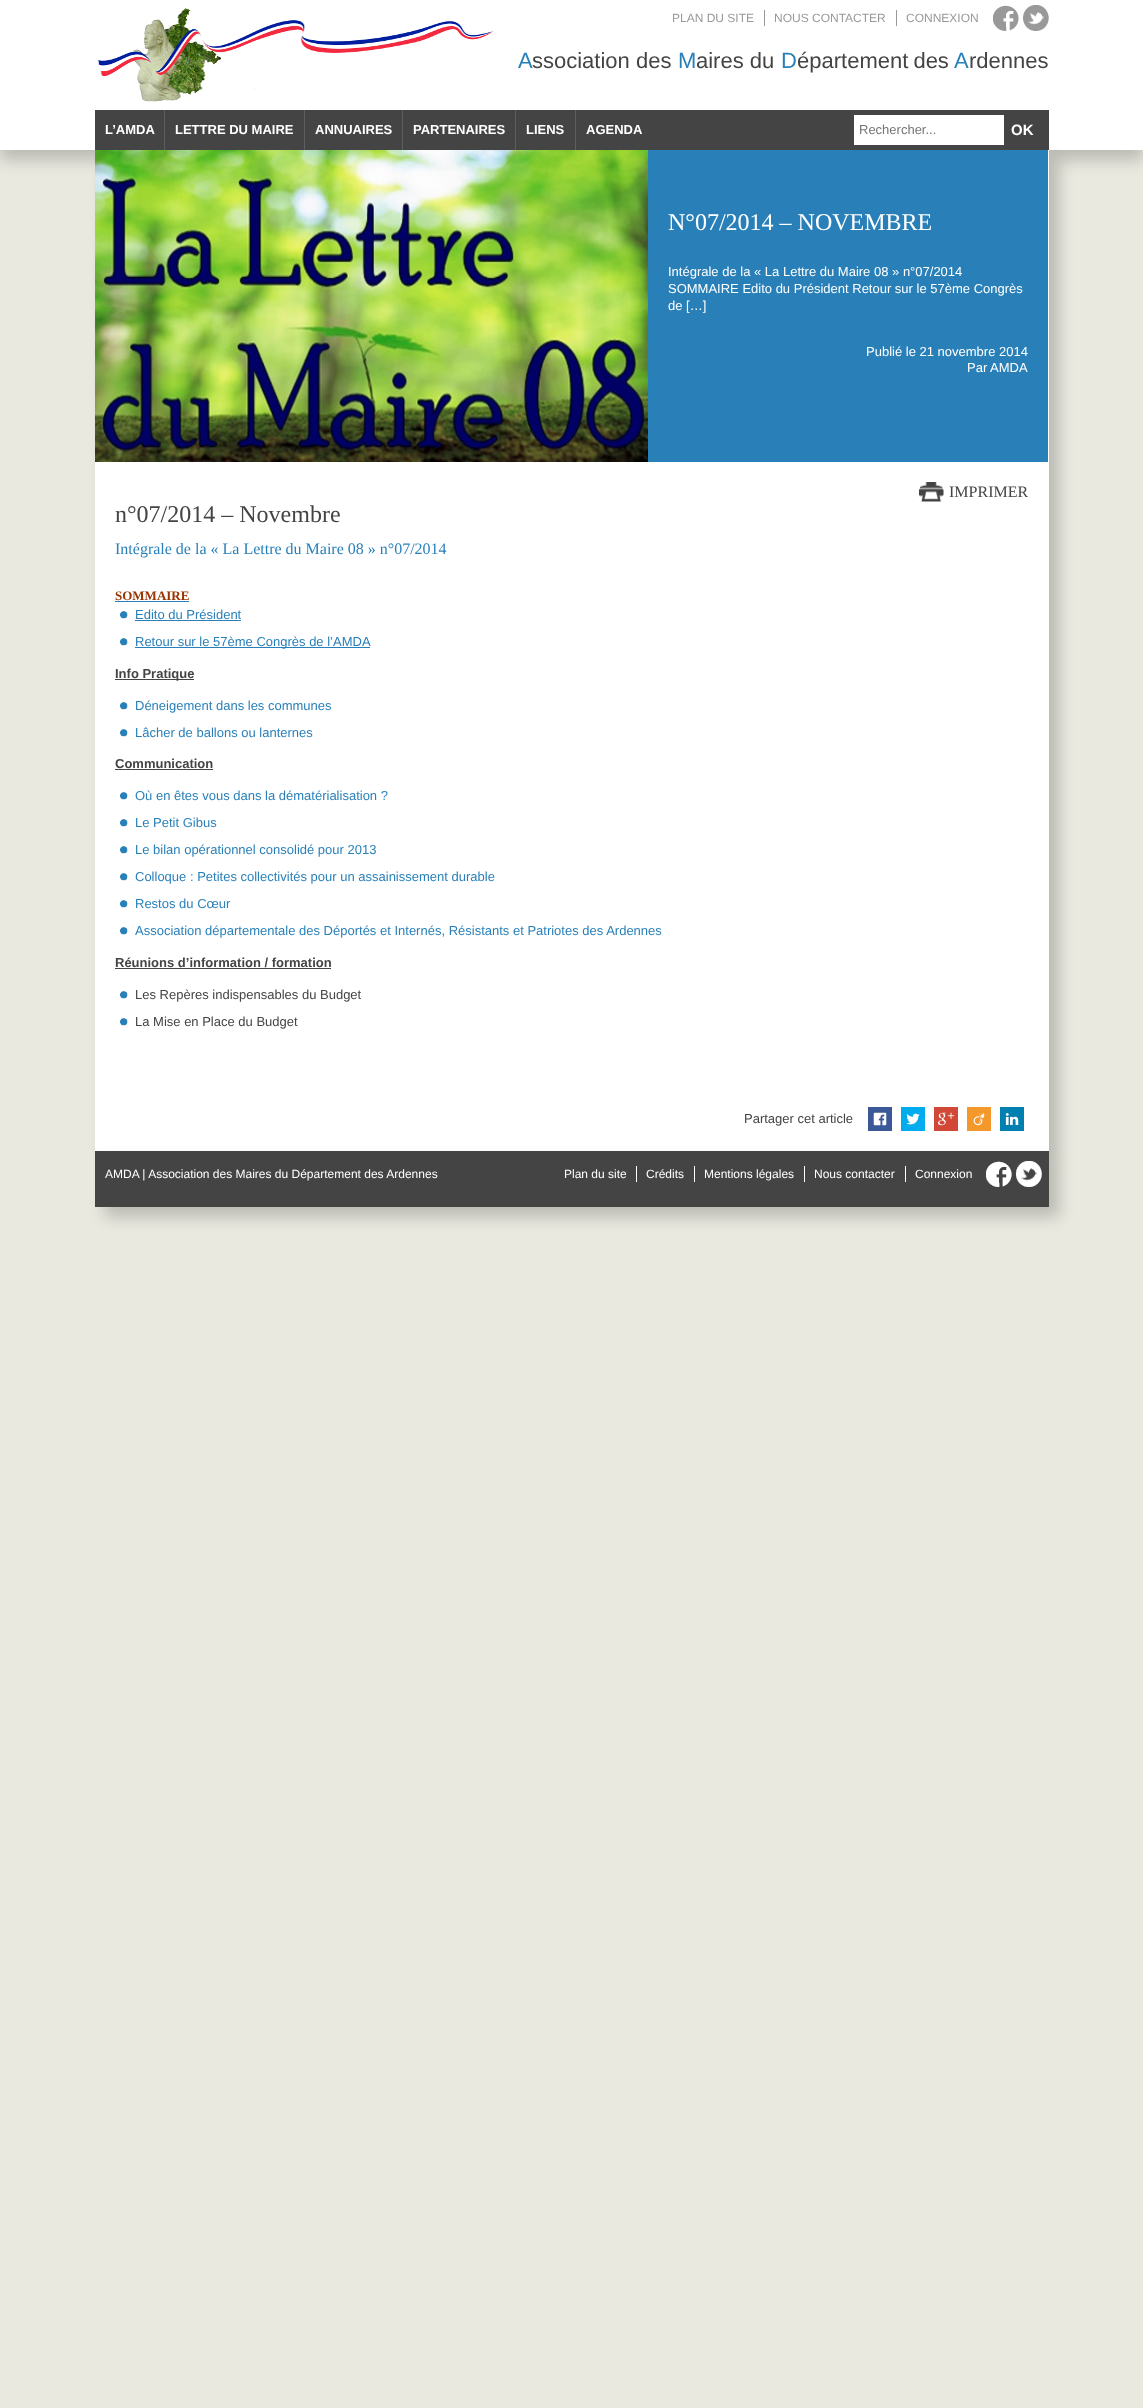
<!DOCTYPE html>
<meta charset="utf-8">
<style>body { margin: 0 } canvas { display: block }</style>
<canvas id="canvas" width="1143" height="2408"></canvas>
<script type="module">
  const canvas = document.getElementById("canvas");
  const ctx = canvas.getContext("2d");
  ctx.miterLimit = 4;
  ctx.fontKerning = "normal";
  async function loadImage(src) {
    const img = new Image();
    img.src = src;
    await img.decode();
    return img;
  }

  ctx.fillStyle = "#eae9e0";
  ctx.fillRect(0, 0, 1143, 2408);
  ctx.fillStyle = "rgba(0, 0, 0, 0.2)";
  ctx.filter = "blur(7.5px)";
  ctx.beginPath();
  ctx.rect(0, 10, 1143, 150);
  ctx.fill();
  ctx.filter = "none";
  ctx.fillStyle = "#ffffff";
  ctx.fillRect(0, 0, 1143, 150);
  ctx.drawImage(await loadImage("img1.png"), 97, 8, 397, 94);
  ctx.fillStyle = "#999999";
  ctx.fillRect(764, 10, 1, 16);
  ctx.font = "12px Liberation Sans";
  ctx.fillText("PLAN DU SITE", 672, 22);
  ctx.fillRect(896, 10, 1, 16);
  ctx.fillText("NOUS CONTACTER", 774, 22);
  ctx.fillText("CONNEXION", 906, 22);
  ctx.drawImage(await loadImage("img2.png"), 993, 5, 26, 26);
  ctx.drawImage(await loadImage("img3.png"), 1023, 5, 26, 26);
  ctx.font = "22px Liberation Sans";
  ctx.fillStyle = "#2980b9";
  ctx.fillText("A", 518, 68);
  ctx.fillStyle = "#444444";
  ctx.fillText("ssociation des", 532, 68);
  ctx.fillStyle = "#2980b9";
  ctx.fillText("M", 678, 68);
  ctx.fillStyle = "#444444";
  ctx.fillText("aires du", 696, 68);
  ctx.fillStyle = "#2980b9";
  ctx.fillText("D", 781, 68);
  ctx.wordSpacing = "-1px";
  ctx.fillStyle = "#444444";
  ctx.fillText("épartement des", 797, 68);
  ctx.wordSpacing = "0px";
  ctx.fillStyle = "#2980b9";
  ctx.fillText("A", 954, 68);
  ctx.fillStyle = "#444444";
  ctx.fillText("rdennes", 969, 68);
  ctx.fillStyle = "rgba(0, 0, 0, 0.2)";
  ctx.filter = "blur(7.5px)";
  ctx.beginPath();
  ctx.rect(105, 160, 954, 1001);
  ctx.fill();
  ctx.filter = "none";
  ctx.fillStyle = "#444444";
  ctx.fillRect(95, 110, 954, 40);
  ctx.font = "bold 13px Liberation Sans";
  ctx.fillStyle = "#ffffff";
  ctx.fillText("L’AMDA", 105, 134);
  ctx.fillStyle = "#5e5e5e";
  ctx.fillRect(164, 110, 1, 40);
  ctx.fillStyle = "#ffffff";
  ctx.fillText("LETTRE DU MAIRE", 175, 134);
  ctx.fillStyle = "#5e5e5e";
  ctx.fillRect(304, 110, 1, 40);
  ctx.fillStyle = "#ffffff";
  ctx.fillText("ANNUAIRES", 315, 134);
  ctx.fillStyle = "#5e5e5e";
  ctx.fillRect(402, 110, 1, 40);
  ctx.fillStyle = "#ffffff";
  ctx.fillText("PARTENAIRES", 413, 134);
  ctx.fillStyle = "#5e5e5e";
  ctx.fillRect(515, 110, 1, 40);
  ctx.fillStyle = "#ffffff";
  ctx.fillText("LIENS", 526, 134);
  ctx.fillStyle = "#5e5e5e";
  ctx.fillRect(575, 110, 1, 40);
  ctx.fillStyle = "#ffffff";
  ctx.fillText("AGENDA", 586, 134);
  ctx.fillRect(854, 115, 150, 30);
  ctx.font = "13px Liberation Sans";
  ctx.fillStyle = "#757575";
  ctx.fillText("Rechercher...", 859, 134);
  ctx.font = "bold 15px Liberation Sans";
  ctx.fillStyle = "#ffffff";
  ctx.fillText("OK", 1011, 135);
  ctx.fillRect(95, 150, 954, 1001);
  ctx.drawImage(await loadImage("img4.png"), 95, 150, 553, 312);
  ctx.fillStyle = "#2980b9";
  ctx.fillRect(648, 150, 400, 312);
  ctx.font = "24px Liberation Serif";
  ctx.fillStyle = "#ffffff";
  ctx.fillText("N°07/2014 – NOVEMBRE", 668, 230);
  ctx.font = "13px Liberation Sans";
  ctx.fillText("Intégrale de la « La Lettre du Maire 08 » n°07/2014", 668, 276);
  ctx.fillText("SOMMAIRE Edito du Président Retour sur le 57ème Congrès", 668, 293);
  ctx.fillText("de […]", 668, 310);
  ctx.fillText("Publié le 21 novembre 2014", 866, 356);
  ctx.fillText("Par AMDA", 967, 372);
  ctx.drawImage(await loadImage("img5.png"), 919, 482, 25, 20);
  ctx.font = "16px Liberation Serif";
  ctx.fillStyle = "#444444";
  ctx.fillText("IMPRIMER", 949, 497);
  ctx.font = "24px Liberation Serif";
  ctx.fillText("n°07/2014 – Novembre", 115, 522);
  ctx.font = "16px Liberation Serif";
  ctx.fillStyle = "#2980b9";
  ctx.fillText("Intégrale de la « La Lettre du Maire 08 » n°07/2014", 115, 554);
  ctx.font = "bold 13px Liberation Serif";
  ctx.fillStyle = "#993300";
  ctx.fillText("SOMMAIRE", 115, 600);
  ctx.fillStyle = "#2980b9";
  ctx.fillRect(115, 601, 74, 1);
  ctx.drawImage(await loadImage("img6.png"), 120, 611, 8, 8);
  ctx.font = "13px Liberation Sans";
  ctx.fillText("Edito du Président", 135, 619);
  ctx.fillRect(135, 620, 106, 1);
  ctx.drawImage(await loadImage("img6.png"), 120, 638, 8, 8);
  ctx.fillRect(135, 647, 235, 1);
  ctx.fillText("Retour sur le 57ème Congrès de l’AMDA", 135, 646);
  ctx.fillStyle = "#444444";
  ctx.fillRect(115, 679, 79, 1);
  ctx.font = "bold 13px Liberation Sans";
  ctx.fillText("Info Pratique", 115, 678);
  ctx.drawImage(await loadImage("img6.png"), 120, 702, 8, 8);
  ctx.font = "13px Liberation Sans";
  ctx.fillStyle = "#2980b9";
  ctx.fillText("Déneigement dans les communes", 135, 710);
  ctx.drawImage(await loadImage("img6.png"), 120, 729, 8, 8);
  ctx.fillText("Lâcher de ballons ou lanternes", 135, 737);
  ctx.font = "bold 13px Liberation Sans";
  ctx.fillStyle = "#444444";
  ctx.fillText("Communication", 115, 768);
  ctx.fillRect(115, 769, 98, 1);
  ctx.drawImage(await loadImage("img6.png"), 120, 792, 8, 8);
  ctx.font = "13px Liberation Sans";
  ctx.fillStyle = "#2980b9";
  ctx.fillText("Où en êtes vous dans la dématérialisation ?", 135, 800);
  ctx.drawImage(await loadImage("img6.png"), 120, 819, 8, 8);
  ctx.fillText("Le Petit Gibus", 135, 827);
  ctx.drawImage(await loadImage("img6.png"), 120, 846, 8, 8);
  ctx.fillText("Le bilan opérationnel consolidé pour 2013", 135, 854);
  ctx.drawImage(await loadImage("img6.png"), 120, 873, 8, 8);
  ctx.fillText("Colloque : Petites collectivités pour un assainissement durable", 135, 881);
  ctx.drawImage(await loadImage("img6.png"), 120, 900, 8, 8);
  ctx.fillText("Restos du Cœur", 135, 908);
  ctx.drawImage(await loadImage("img6.png"), 120, 927, 8, 8);
  ctx.fillText("Association départementale des Déportés et Internés, Résistants et Patriotes des Ardennes", 135, 935);
  ctx.font = "bold 13px Liberation Sans";
  ctx.fillStyle = "#444444";
  ctx.fillText("Réunions d’information / formation", 115, 967);
  ctx.fillRect(115, 968, 216, 1);
  ctx.drawImage(await loadImage("img6.png"), 120, 991, 8, 8);
  ctx.font = "13px Liberation Sans";
  ctx.fillText("Les Repères indispensables du Budget", 135, 999);
  ctx.drawImage(await loadImage("img6.png"), 120, 1018, 8, 8);
  ctx.fillText("La Mise en Place du Budget", 135, 1026);
  ctx.fillText("Partager cet article", 744, 1123);
  ctx.drawImage(await loadImage("img7.png"), 868, 1107, 24, 24);
  ctx.drawImage(await loadImage("img8.png"), 901, 1107, 24, 24);
  ctx.drawImage(await loadImage("img9.png"), 934, 1107, 24, 24);
  ctx.drawImage(await loadImage("img10.png"), 967, 1107, 24, 24);
  ctx.drawImage(await loadImage("img11.png"), 1000, 1107, 24, 24);
  ctx.fillStyle = "rgba(0, 0, 0, 0.2)";
  ctx.filter = "blur(7.5px)";
  ctx.beginPath();
  ctx.rect(105, 1161, 954, 56);
  ctx.fill();
  ctx.filter = "none";
  ctx.fillStyle = "#444444";
  ctx.fillRect(95, 1151, 954, 56);
  ctx.font = "12px Liberation Sans";
  ctx.fillStyle = "#ffffff";
  ctx.fillText("AMDA | Association des Maires du Département des Ardennes", 105, 1178);
  ctx.fillRect(636, 1166, 1, 16);
  ctx.fillText("Plan du site", 564, 1178);
  ctx.fillRect(694, 1166, 1, 16);
  ctx.fillText("Crédits", 646, 1178);
  ctx.fillRect(804, 1166, 1, 16);
  ctx.fillText("Mentions légales", 704, 1178);
  ctx.fillRect(905, 1166, 1, 16);
  ctx.fillText("Nous contacter", 814, 1178);
  ctx.fillText("Connexion", 915, 1178);
  ctx.drawImage(await loadImage("img12.png"), 986, 1161, 26, 26);
  ctx.drawImage(await loadImage("img13.png"), 1016, 1161, 26, 26);
</script>
